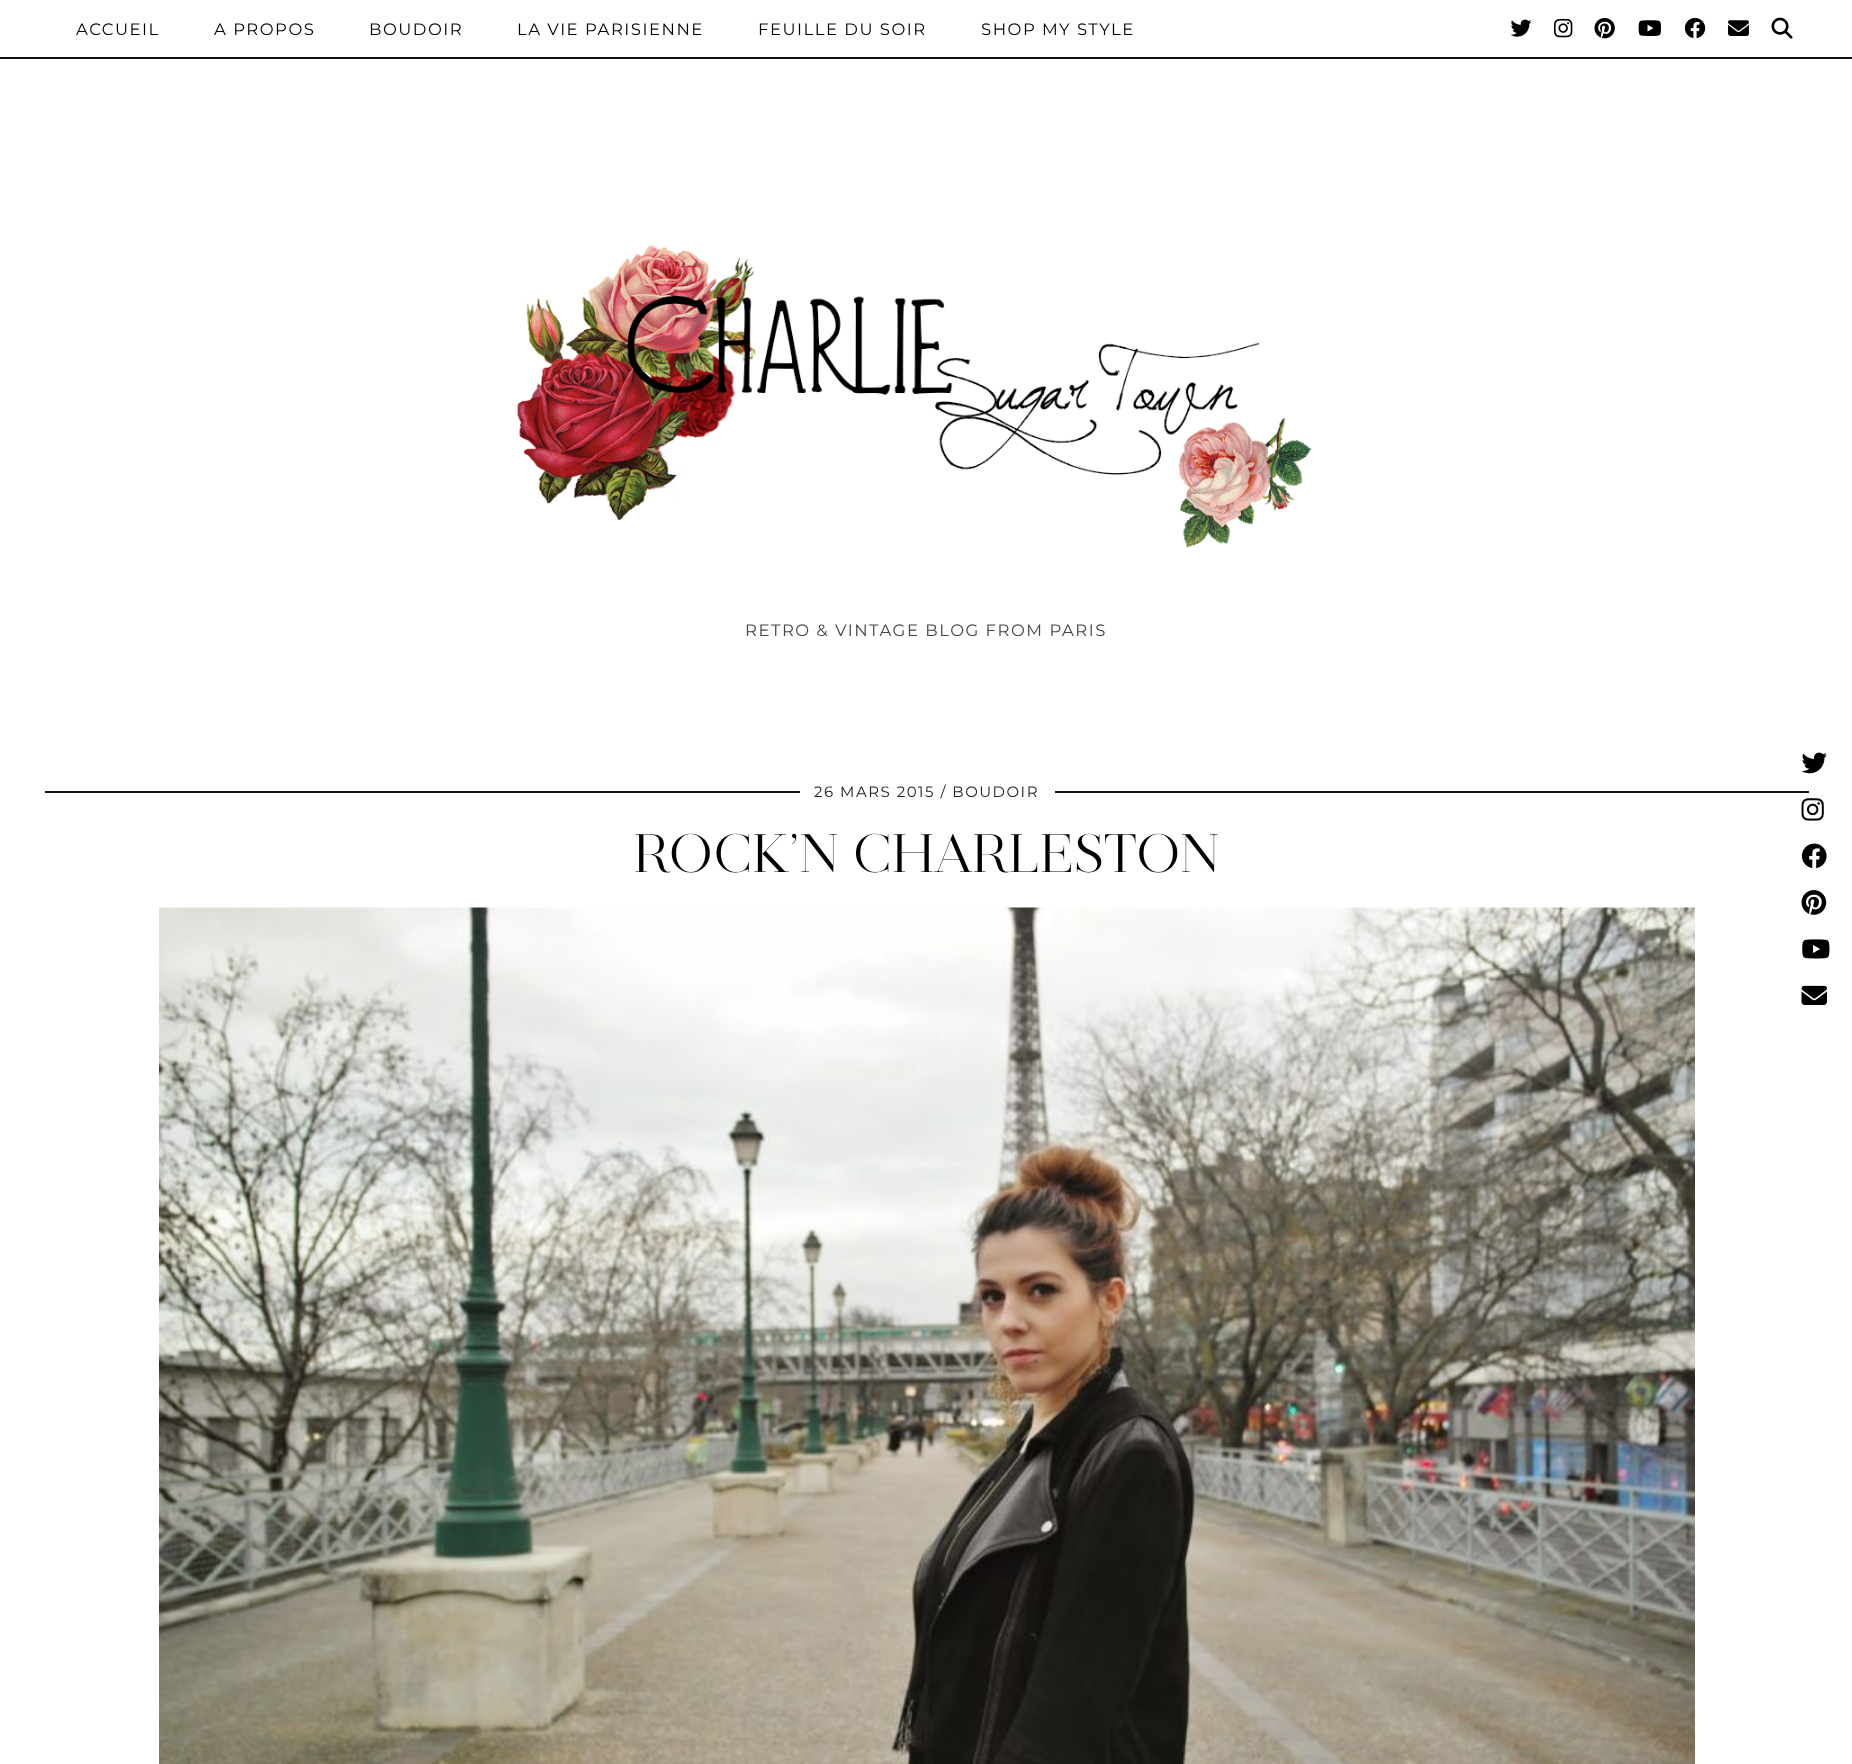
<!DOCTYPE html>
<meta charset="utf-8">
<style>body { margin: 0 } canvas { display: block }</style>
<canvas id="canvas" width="1852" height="1764"></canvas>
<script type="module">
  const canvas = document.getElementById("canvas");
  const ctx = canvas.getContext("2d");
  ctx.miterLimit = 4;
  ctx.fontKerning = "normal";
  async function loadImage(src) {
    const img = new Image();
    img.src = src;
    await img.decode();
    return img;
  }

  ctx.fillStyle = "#ffffff";
  ctx.fillRect(0, 0, 1852, 1764);
  ctx.fillStyle = "#111111";
  ctx.fillRect(0, 57, 1852, 2);
  ctx.letterSpacing = "1.5px";
  ctx.font = "100 16.5px Montserrat";
  ctx.fillStyle = "#000000";
  ctx.fillText("ACCUEIL", 76, 35);
  ctx.fillText("A PROPOS", 214, 35);
  ctx.fillText("BOUDOIR", 369, 35);
  ctx.fillText("LA VIE PARISIENNE", 517, 35);
  ctx.fillText("FEUILLE DU SOIR", 758, 35);
  ctx.fillText("SHOP MY STYLE", 981, 35);
  ctx.drawImage(await loadImage("img1.png"), 1510, 19, 22, 18);
  ctx.drawImage(await loadImage("img2.png"), 1554, 18, 19, 20);
  ctx.drawImage(await loadImage("img3.png"), 1594, 17, 21, 22);
  ctx.drawImage(await loadImage("img4.png"), 1638, 20, 23, 16);
  ctx.drawImage(await loadImage("img5.png"), 1684, 18, 22, 21);
  ctx.drawImage(await loadImage("img6.png"), 1728, 20, 21, 16);
  ctx.drawImage(await loadImage("img7.png"), 1771, 17, 22, 22);
  ctx.drawImage(await loadImage("img8.png"), 517, 245, 795, 303);
  ctx.fillStyle = "#444444";
  ctx.fillText("RETRO & VINTAGE BLOG FROM PARIS", 745, 636);
  ctx.fillStyle = "#111111";
  ctx.fillRect(45, 791, 1764, 2);
  ctx.fillStyle = "#ffffff";
  ctx.fillRect(800, 791, 135, 2);
  ctx.fillRect(935, 791, 6, 10);
  ctx.fillRect(941, 791, 114, 2);
  ctx.font = "100 15px Montserrat";
  ctx.fillStyle = "#222222";
  ctx.fillText("26 MARS 2015 / BOUDOIR", 814, 797);
  ctx.letterSpacing = "0px";
  ctx.font = "54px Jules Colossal";
  ctx.fillStyle = "#000000";
  ctx.fillText("ROCK’N CHARLESTON", 633, 872);
  ctx.drawImage(await loadImage("img9.png"), 159, 907, 1536, 857);
  ctx.drawImage(await loadImage("img10.png"), 1801, 752, 26, 22);
  ctx.drawImage(await loadImage("img11.png"), 1801, 798, 23, 23);
  ctx.drawImage(await loadImage("img12.png"), 1801, 843, 26, 26);
  ctx.drawImage(await loadImage("img13.png"), 1801, 890, 26, 25);
  ctx.drawImage(await loadImage("img14.png"), 1802, 939, 28, 20);
  ctx.drawImage(await loadImage("img15.png"), 1801, 985, 26, 20);
</script>
